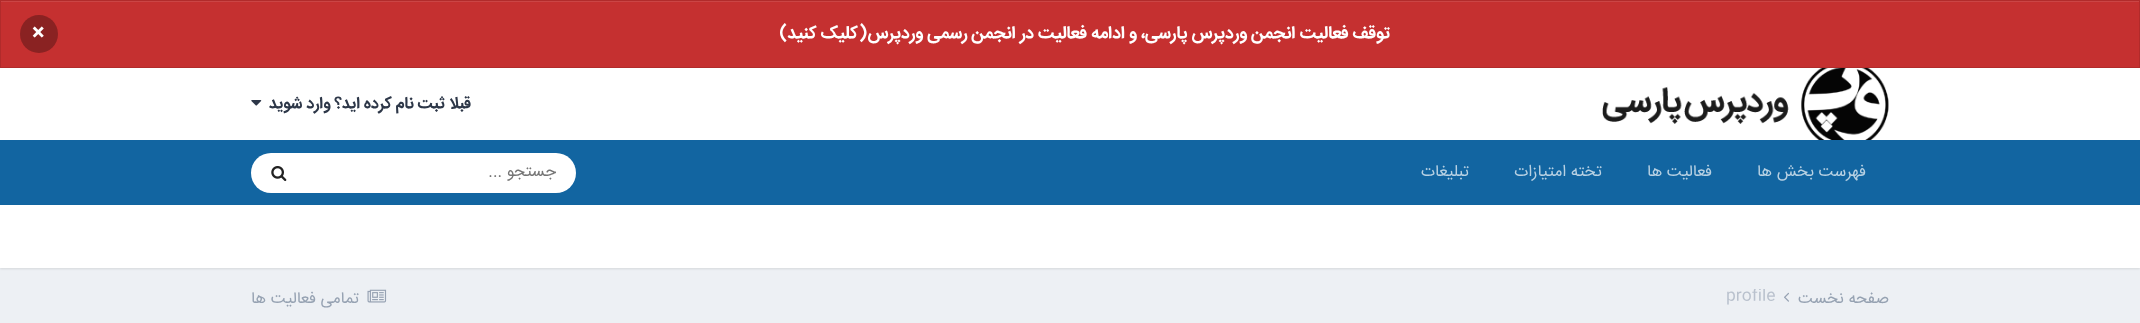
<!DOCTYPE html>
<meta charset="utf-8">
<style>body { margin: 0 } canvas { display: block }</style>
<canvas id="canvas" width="2140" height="323"></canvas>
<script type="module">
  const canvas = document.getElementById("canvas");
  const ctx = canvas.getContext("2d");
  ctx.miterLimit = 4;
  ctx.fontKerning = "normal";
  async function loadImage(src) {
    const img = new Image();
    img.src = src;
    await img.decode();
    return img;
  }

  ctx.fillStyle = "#edf0f4";
  ctx.fillRect(0, 0, 2140, 323);
  ctx.fillStyle = "#c53030";
  ctx.fillRect(1, 2, 2138, 65);
  ctx.fillStyle = "#cb4545";
  ctx.fillRect(1, 1, 2138, 1);
  ctx.strokeStyle = "#b12b2b";
  ctx.strokeRect(0.5, 0.5, 2139, 67);
  ctx.direction = "rtl";
  ctx.font = "bold 17.5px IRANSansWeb";
  ctx.fillStyle = "#ffffff";
  ctx.fillText("توقف فعالیت انجمن وردپرس پارسی، و ادامه فعالیت در انجمن رسمی وردپرس(کلیک کنید)", 1390, 38);
  ctx.fillStyle = "#8a2222";
  ctx.beginPath();
  ctx.arc(39, 34, 19, 0, Math.PI * 2);
  ctx.fill();
  ctx.direction = "ltr";
  ctx.font = "bold 22px IRANSansWeb";
  ctx.fillStyle = "#ffffff";
  ctx.fillText("×", 32, 39);
  ctx.fillRect(0, 68, 2140, 72);
  ctx.drawImage(await loadImage("img1.png"), 1602, 68, 287, 72);
  ctx.direction = "rtl";
  ctx.font = "bold 16.25px IRANSansWeb";
  ctx.fillStyle = "#2d3748";
  ctx.fillText("قبلا ثبت نام کرده اید؟ وارد شوید", 471, 108);
  ctx.drawImage(await loadImage("img2.png"), 251, 100, 11, 6);
  ctx.fillStyle = "#1265a1";
  ctx.fillRect(0, 140, 2140, 65);
  ctx.font = "16.25px IRANSansWeb";
  ctx.fillStyle = "#b8d1e3";
  ctx.fillText("فهرست بخش ها", 1866, 176);
  ctx.fillText("فعالیت ها", 1712, 176);
  ctx.fillText("تخته امتیازات", 1602, 176);
  ctx.fillText("تبلیغات", 1469, 176);
  ctx.fillStyle = "#ffffff";
  ctx.beginPath();
  ctx.roundRect(251, 153, 325, 40, 20);
  ctx.fill();
  ctx.fillStyle = "#757575";
  ctx.fillText("جستجو ...", 556, 176);
  ctx.drawImage(await loadImage("img3.png"), 271, 166, 16, 16);
  ctx.fillStyle = "rgba(0, 0, 0, 0.1)";
  ctx.filter = "blur(1px)";
  ctx.beginPath();
  ctx.rect(0, 206, 2140, 63);
  ctx.fill();
  ctx.filter = "none";
  ctx.fillStyle = "#ffffff";
  ctx.fillRect(0, 205, 2140, 63);
  ctx.fillStyle = "#96a2b2";
  ctx.fillText("صفحه نخست", 1889, 303);
  ctx.drawImage(await loadImage("img4.png"), 1784, 292, 5, 10);
  ctx.save();
  ctx.beginPath();
  ctx.rect(1725, 289, 50, 19);
  ctx.clip();
  ctx.direction = "ltr";
  ctx.fillStyle = "#b9c1cd";
  ctx.fillText("profile", 1726, 300);
  ctx.restore();
  ctx.drawImage(await loadImage("img5.png"), 367, 289, 20, 14);
  ctx.fillText("تمامی فعالیت ها", 359, 303);
</script>
